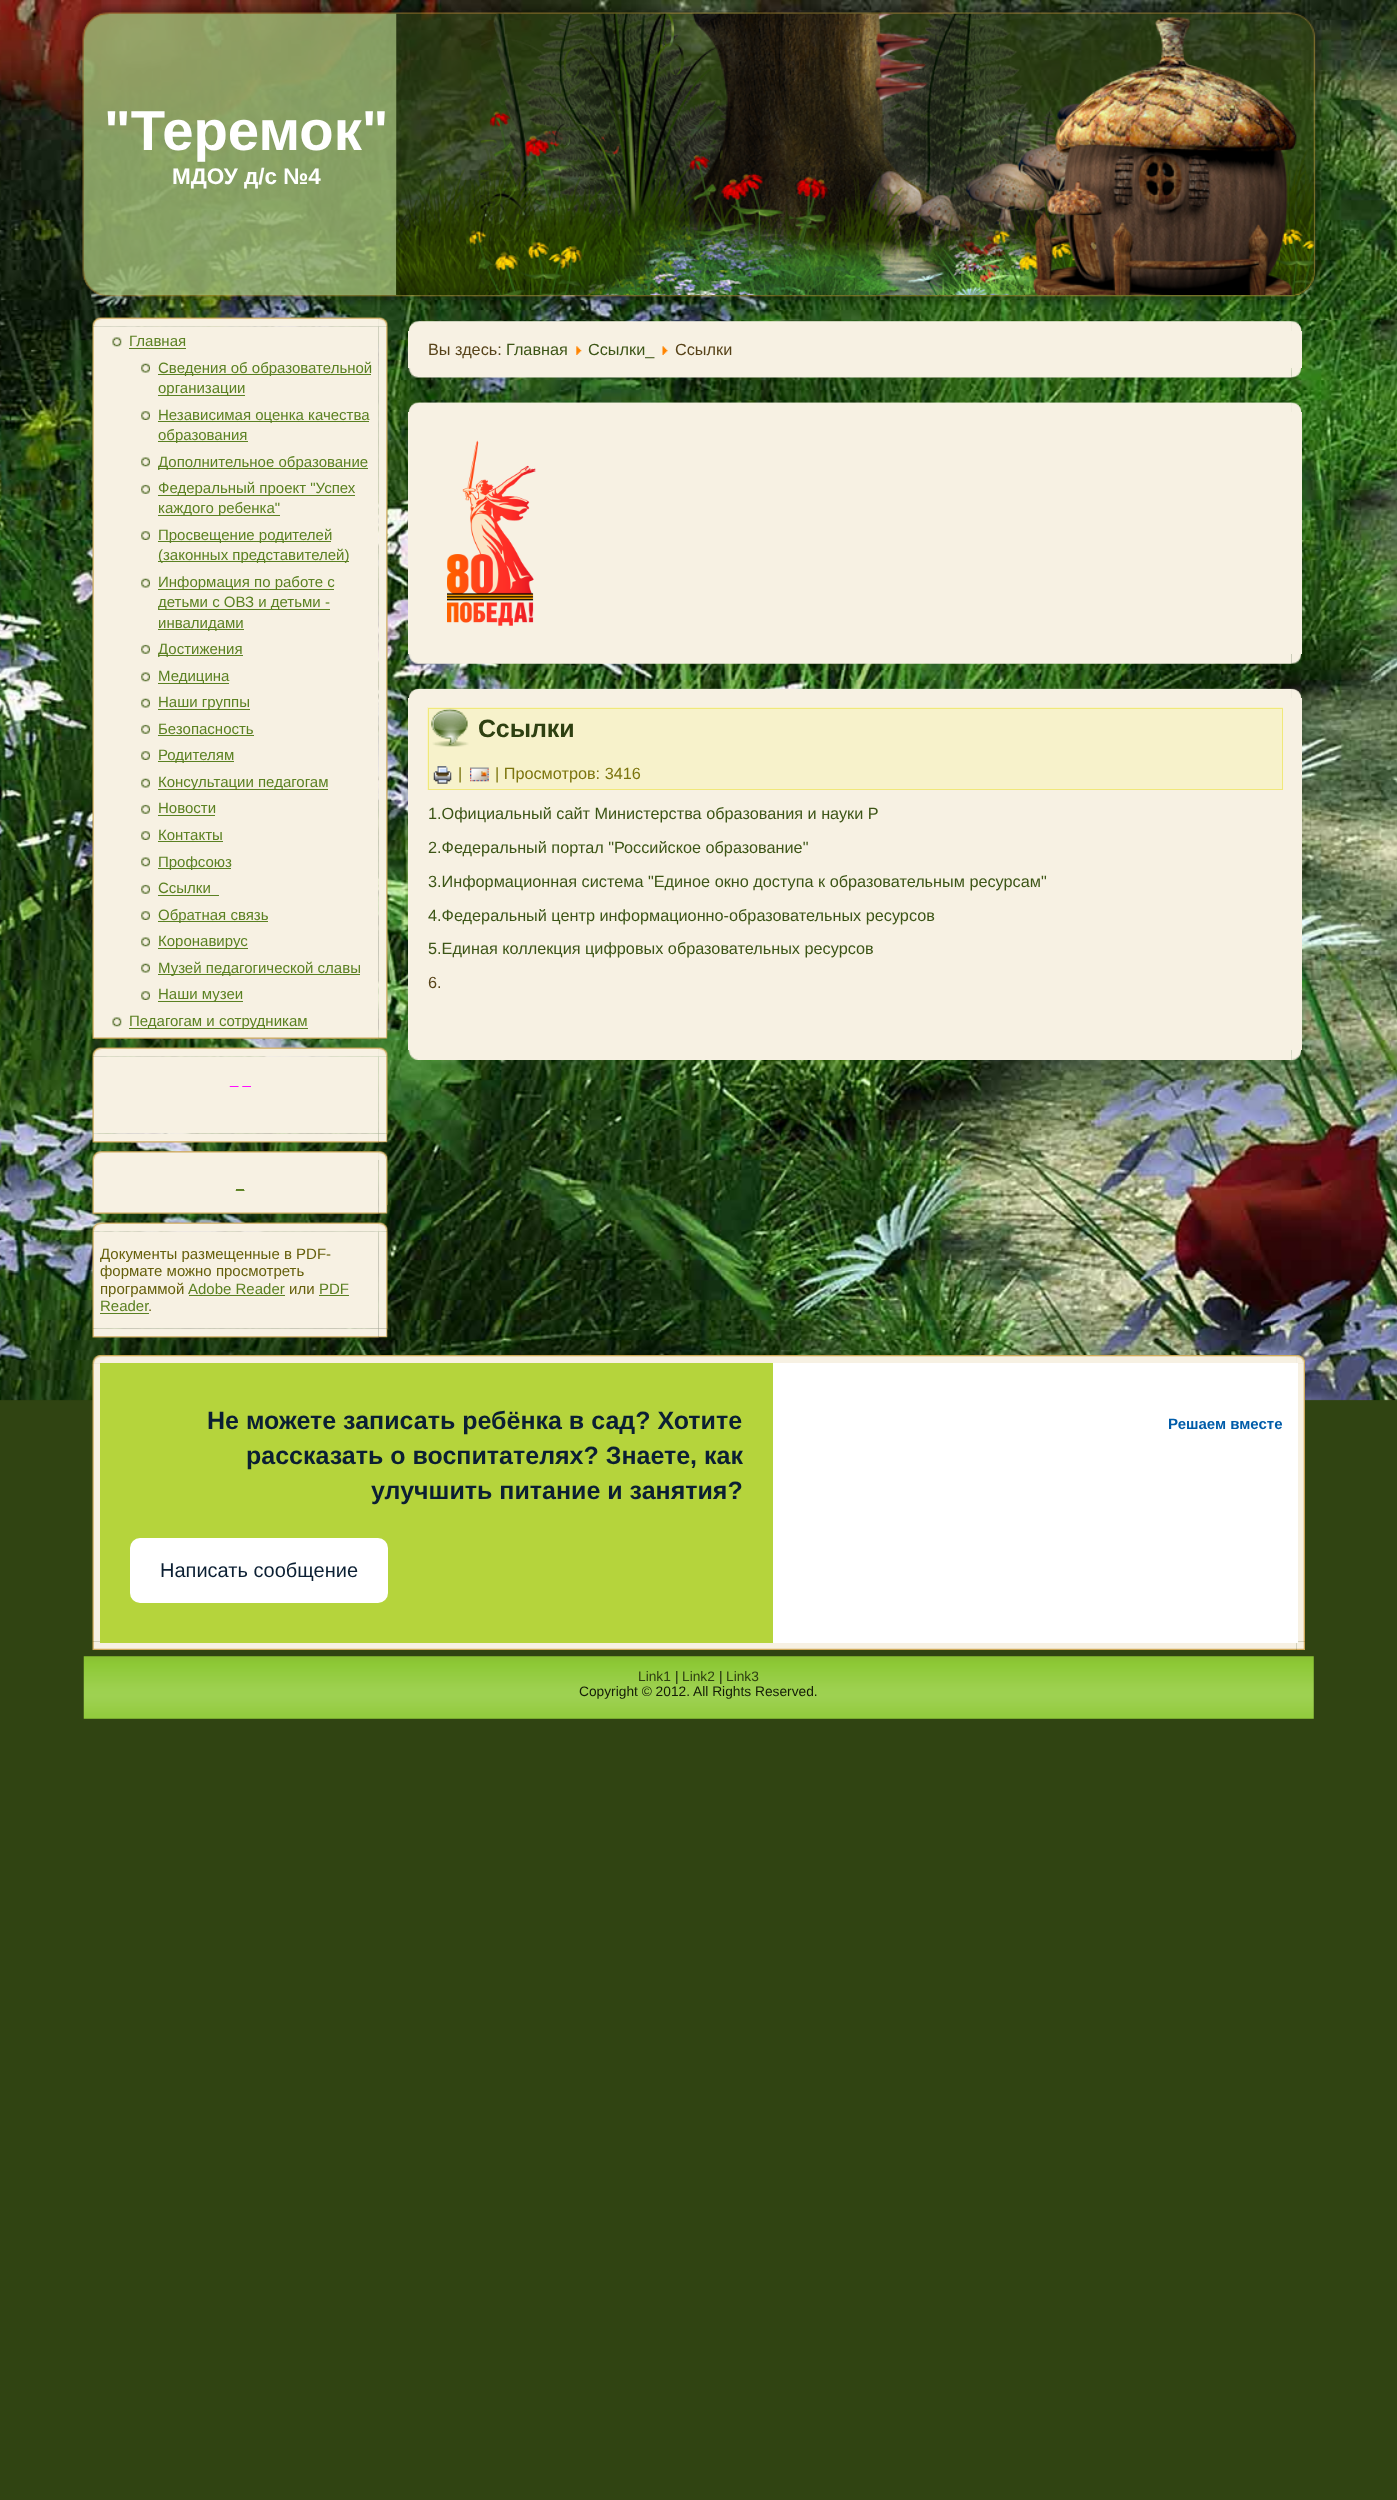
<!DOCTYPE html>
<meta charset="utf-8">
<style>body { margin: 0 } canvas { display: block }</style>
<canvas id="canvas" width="1397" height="2500"></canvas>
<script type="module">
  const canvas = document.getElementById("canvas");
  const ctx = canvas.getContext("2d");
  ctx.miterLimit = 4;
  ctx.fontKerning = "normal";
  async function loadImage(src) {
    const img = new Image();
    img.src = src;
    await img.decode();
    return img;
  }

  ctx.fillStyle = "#304412";
  ctx.fillRect(0, 0, 1397, 2500);
  ctx.drawImage(await loadImage("img1.png"), 0, 0, 1397, 1401);
  ctx.drawImage(await loadImage("img2.png"), 75, 4, 1248, 301);
  ctx.drawImage(await loadImage("img3.png"), 83, 13, 314, 282);
  ctx.drawImage(await loadImage("img4.png"), 396, 13, 918, 282);
  ctx.font = "bold 56.25px Liberation Sans";
  ctx.fillStyle = "#ffffff";
  ctx.fillText("\"Теремок\"", 104, 150);
  ctx.font = "bold 22.5px Liberation Sans";
  ctx.fillText("МДОУ д/с №4", 172, 184);
  ctx.drawImage(await loadImage("img5.png"), 92, 317, 287, 722);
  ctx.drawImage(await loadImage("img6.png"), 92, 317, 287, 10);
  ctx.drawImage(await loadImage("img9.png"), 92, 326, 287, 704);
  ctx.drawImage(await loadImage("img10.png"), 378, 326, 10, 704);
  ctx.drawImage(await loadImage("img7.png"), 378, 317, 10, 722);
  ctx.drawImage(await loadImage("img8.png"), 378, 317, 10, 10);
  ctx.drawImage(await loadImage("img11.png"), 112, 337, 10, 10);
  ctx.font = "15px Liberation Sans";
  ctx.fillStyle = "#5b8122";
  ctx.fillText("Главная", 129, 346);
  ctx.fillRect(129, 348, 57, 1);
  ctx.drawImage(await loadImage("img12.png"), 141, 363, 9, 10);
  ctx.fillRect(158, 374, 213, 1);
  ctx.fillText("Сведения об образовательной", 158, 373);
  ctx.fillRect(158, 395, 87, 1);
  ctx.fillText("организации", 158, 393);
  ctx.drawImage(await loadImage("img13.png"), 141, 411, 9, 9);
  ctx.fillRect(158, 421, 211, 1);
  ctx.fillText("Независимая оценка качества", 158, 420);
  ctx.fillRect(158, 441, 90, 1);
  ctx.fillText("образования", 158, 440);
  ctx.drawImage(await loadImage("img14.png"), 141, 457, 9, 10);
  ctx.fillRect(158, 468, 210, 1);
  ctx.fillText("Дополнительное образование", 158, 467);
  ctx.drawImage(await loadImage("img15.png"), 141, 484, 9, 10);
  ctx.fillRect(158, 495, 197, 1);
  ctx.fillText("Федеральный проект \"Успех", 158, 493);
  ctx.fillRect(158, 515, 122, 1);
  ctx.fillText("каждого ребенка\"", 158, 513);
  ctx.drawImage(await loadImage("img13.png"), 141, 531, 9, 9);
  ctx.fillRect(158, 541, 173, 1);
  ctx.fillText("Просвещение родителей", 158, 540);
  ctx.fillRect(158, 561, 191, 1);
  ctx.fillText("(законных представителей)", 158, 560);
  ctx.drawImage(await loadImage("img12.png"), 141, 578, 9, 10);
  ctx.fillRect(158, 589, 176, 1);
  ctx.fillText("Информация по работе с", 158, 587);
  ctx.fillRect(158, 609, 172, 1);
  ctx.fillText("детьми с ОВЗ и детьми -", 158, 607);
  ctx.fillRect(158, 629, 86, 1);
  ctx.fillText("инвалидами", 158, 628);
  ctx.drawImage(await loadImage("img15.png"), 141, 644, 9, 10);
  ctx.fillRect(158, 655, 85, 1);
  ctx.fillText("Достижения", 158, 654);
  ctx.drawImage(await loadImage("img14.png"), 141, 672, 9, 10);
  ctx.fillRect(158, 683, 71, 1);
  ctx.fillText("Медицина", 158, 681);
  ctx.drawImage(await loadImage("img12.png"), 141, 698, 9, 10);
  ctx.fillRect(158, 709, 92, 1);
  ctx.fillText("Наши группы", 158, 707);
  ctx.drawImage(await loadImage("img15.png"), 141, 724, 9, 10);
  ctx.fillText("Безопасность", 158, 734);
  ctx.fillRect(158, 735, 96, 1);
  ctx.drawImage(await loadImage("img13.png"), 141, 751, 9, 9);
  ctx.fillRect(158, 761, 76, 1);
  ctx.fillText("Родителям", 158, 760);
  ctx.drawImage(await loadImage("img16.png"), 141, 778, 9, 10);
  ctx.fillRect(158, 789, 170, 1);
  ctx.fillText("Консультации педагогам", 158, 787);
  ctx.drawImage(await loadImage("img15.png"), 141, 804, 9, 10);
  ctx.fillText("Новости", 158, 813);
  ctx.fillRect(158, 815, 57, 1);
  ctx.drawImage(await loadImage("img13.png"), 141, 831, 9, 9);
  ctx.fillText("Контакты", 158, 840);
  ctx.fillRect(158, 841, 65, 1);
  ctx.drawImage(await loadImage("img14.png"), 141, 857, 9, 10);
  ctx.fillRect(158, 868, 73, 1);
  ctx.fillText("Профсоюз", 158, 867);
  ctx.drawImage(await loadImage("img15.png"), 141, 884, 9, 10);
  ctx.fillText("Ссылки", 158, 893);
  ctx.fillRect(158, 895, 61, 1);
  ctx.drawImage(await loadImage("img13.png"), 141, 911, 9, 9);
  ctx.fillRect(158, 921, 110, 1);
  ctx.fillText("Обратная связь", 158, 920);
  ctx.drawImage(await loadImage("img14.png"), 141, 937, 9, 10);
  ctx.fillRect(158, 948, 90, 1);
  ctx.fillText("Коронавирус", 158, 946);
  ctx.drawImage(await loadImage("img12.png"), 141, 963, 9, 10);
  ctx.fillRect(158, 974, 202, 1);
  ctx.fillText("Музей педагогической славы", 158, 973);
  ctx.drawImage(await loadImage("img13.png"), 141, 991, 9, 9);
  ctx.fillRect(158, 1001, 85, 1);
  ctx.fillText("Наши музеи", 158, 999);
  ctx.drawImage(await loadImage("img11.png"), 112, 1017, 10, 10);
  ctx.fillRect(129, 1028, 179, 1);
  ctx.fillText("Педагогам и сотрудникам", 129, 1026);
  ctx.drawImage(await loadImage("img17.png"), 92, 1047, 287, 96);
  ctx.drawImage(await loadImage("img18.png"), 92, 1047, 287, 10);
  ctx.drawImage(await loadImage("img21.png"), 92, 1056, 287, 78);
  ctx.drawImage(await loadImage("img22.png"), 378, 1056, 10, 78);
  ctx.drawImage(await loadImage("img19.png"), 378, 1047, 10, 96);
  ctx.drawImage(await loadImage("img20.png"), 378, 1047, 10, 10);
  ctx.fillStyle = "#ff00ff";
  ctx.fillText("_ _", 230, 1084);
  ctx.drawImage(await loadImage("img23.png"), 92, 1151, 287, 63);
  ctx.drawImage(await loadImage("img24.png"), 92, 1151, 287, 9);
  ctx.drawImage(await loadImage("img27.png"), 92, 1160, 287, 45);
  ctx.drawImage(await loadImage("img28.png"), 378, 1160, 10, 45);
  ctx.drawImage(await loadImage("img25.png"), 378, 1151, 10, 63);
  ctx.drawImage(await loadImage("img26.png"), 378, 1151, 10, 9);
  ctx.fillStyle = "#5b8122";
  ctx.fillText("_", 236, 1188);
  ctx.fillRect(236, 1189, 8, 1);
  ctx.drawImage(await loadImage("img29.png"), 92, 1222, 287, 116);
  ctx.drawImage(await loadImage("img30.png"), 92, 1222, 287, 10);
  ctx.drawImage(await loadImage("img33.png"), 92, 1231, 287, 98);
  ctx.drawImage(await loadImage("img34.png"), 378, 1231, 10, 98);
  ctx.drawImage(await loadImage("img31.png"), 378, 1222, 10, 116);
  ctx.drawImage(await loadImage("img32.png"), 378, 1222, 10, 10);
  ctx.fillStyle = "#655f0b";
  ctx.fillText("Документы размещенные в PDF-", 100, 1259);
  ctx.fillText("формате можно просмотреть", 100, 1276);
  ctx.fillText("программой", 100, 1294);
  ctx.fillStyle = "#5b8122";
  ctx.fillText("Adobe Reader", 188, 1294);
  ctx.fillRect(189, 1295, 96, 1);
  ctx.fillStyle = "#655f0b";
  ctx.fillText("или", 289, 1294);
  ctx.fillStyle = "#5b8122";
  ctx.fillText("PDF", 319, 1294);
  ctx.fillRect(319, 1295, 30, 1);
  ctx.fillText("Reader", 100, 1311);
  ctx.fillRect(100, 1313, 49, 1);
  ctx.fillStyle = "#655f0b";
  ctx.fillText(".", 148, 1311);
  ctx.drawImage(await loadImage("img35.png"), 408, 321, 884, 57);
  ctx.drawImage(await loadImage("img36.png"), 408, 321, 884, 10);
  ctx.fillStyle = "#f7f1e3";
  ctx.fillRect(408, 331, 894, 37);
  ctx.drawImage(await loadImage("img37.png"), 1291, 321, 11, 57);
  ctx.drawImage(await loadImage("img38.png"), 1291, 321, 11, 10);
  ctx.font = "16.25px Liberation Sans";
  ctx.fillStyle = "#574319";
  ctx.fillText("Вы здесь:", 428, 355);
  ctx.fillStyle = "#3c5516";
  ctx.fillText("Главная", 506, 355);
  ctx.drawImage(await loadImage("img39.png"), 576, 346, 6, 9);
  ctx.fillText("Ссылки_", 588, 355);
  ctx.drawImage(await loadImage("img40.png"), 662, 346, 6, 9);
  ctx.fillStyle = "#574319";
  ctx.fillText("Ссылки", 675, 355);
  ctx.drawImage(await loadImage("img41.png"), 408, 402, 884, 262);
  ctx.drawImage(await loadImage("img42.png"), 408, 402, 884, 10);
  ctx.fillStyle = "#f7f1e3";
  ctx.fillRect(408, 412, 894, 242);
  ctx.drawImage(await loadImage("img43.png"), 1291, 402, 11, 262);
  ctx.drawImage(await loadImage("img44.png"), 1291, 402, 11, 10);
  ctx.drawImage(await loadImage("img45.png"), 447, 440, 89, 186);
  ctx.drawImage(await loadImage("img46.png"), 408, 688, 884, 372);
  ctx.drawImage(await loadImage("img47.png"), 408, 688, 884, 10);
  ctx.fillRect(408, 698, 894, 352);
  ctx.drawImage(await loadImage("img48.png"), 1291, 688, 11, 372);
  ctx.drawImage(await loadImage("img49.png"), 1291, 688, 11, 10);
  ctx.fillStyle = "#f7f2cb";
  ctx.fillRect(427, 707, 856, 83);
  ctx.strokeStyle = "#f0e87a";
  ctx.strokeRect(428.5, 708.5, 854, 81);
  ctx.drawImage(await loadImage("img50.png"), 431, 708, 38, 39);
  ctx.font = "bold 25px Liberation Sans";
  ctx.fillStyle = "#2e4011";
  ctx.fillText("Ссылки", 478, 737);
  ctx.drawImage(await loadImage("img51.png"), 433, 766, 19, 18);
  ctx.font = "16.25px Liberation Sans";
  ctx.fillStyle = "#7c750e";
  ctx.fillText("|", 458, 779);
  ctx.drawImage(await loadImage("img52.png"), 470, 767, 19, 15);
  ctx.fillText("| Просмотров: 3416", 495, 779);
  ctx.fillStyle = "#3c5516";
  ctx.fillText("1.Официальный сайт Министерства образования и науки Р", 428, 819);
  ctx.fillText("2.Федеральный портал \"Российское образование\"", 428, 853);
  ctx.fillText("3.Информационная система \"Единое окно доступа к образовательным ресурсам\"", 428, 887);
  ctx.fillText("4.Федеральный центр информационно-образовательных ресурсов", 428, 921);
  ctx.fillText("5.Единая коллекция цифровых образовательных ресурсов", 428, 954);
  ctx.fillStyle = "#574319";
  ctx.fillText("6.", 428, 988);
  ctx.drawImage(await loadImage("img53.png"), 92, 1355, 1205, 295);
  ctx.drawImage(await loadImage("img54.png"), 92, 1355, 1205, 9);
  ctx.drawImage(await loadImage("img58.png"), 1298, 1363, 7, 279);
  ctx.drawImage(await loadImage("img55.png"), 1296, 1355, 9, 295);
  ctx.drawImage(await loadImage("img56.png"), 1296, 1355, 9, 9);
  ctx.drawImage(await loadImage("img57.png"), 92, 1363, 8, 279);
  ctx.fillStyle = "#b5d43c";
  ctx.fillRect(100, 1363, 673, 280);
  ctx.font = "bold 25px Liberation Sans";
  ctx.fillStyle = "#0b1f33";
  ctx.fillText("Не можете записать ребёнка в сад? Хотите", 207, 1429);
  ctx.fillText("рассказать о воспитателях? Знаете, как", 246, 1464);
  ctx.fillText("улучшить питание и занятия?", 371, 1499);
  ctx.fillStyle = "#ffffff";
  ctx.beginPath();
  ctx.roundRect(130, 1538, 258, 65, 10);
  ctx.fill();
  ctx.font = "20px Liberation Sans";
  ctx.fillStyle = "#0b1f33";
  ctx.fillText("Написать сообщение", 160, 1577);
  ctx.fillStyle = "#ffffff";
  ctx.fillRect(773, 1363, 525, 280);
  ctx.font = "bold 15px Liberation Sans";
  ctx.fillStyle = "#005ca9";
  ctx.fillText("Решаем вместе", 1168, 1429);
  ctx.drawImage(await loadImage("img59.png"), 83, 1656, 1231, 63);
  ctx.font = "13.75px Liberation Sans";
  ctx.fillStyle = "#2e4011";
  ctx.fillText("Link1", 638, 1681);
  ctx.fillStyle = "#141c07";
  ctx.fillText("|", 675, 1681);
  ctx.fillStyle = "#2e4011";
  ctx.fillText("Link2", 682, 1681);
  ctx.fillStyle = "#141c07";
  ctx.fillText("|", 719, 1681);
  ctx.fillStyle = "#2e4011";
  ctx.fillText("Link3", 726, 1681);
  ctx.fillStyle = "#141c07";
  ctx.fillText("Copyright © 2012. All Rights Reserved.", 579, 1696);
</script>
